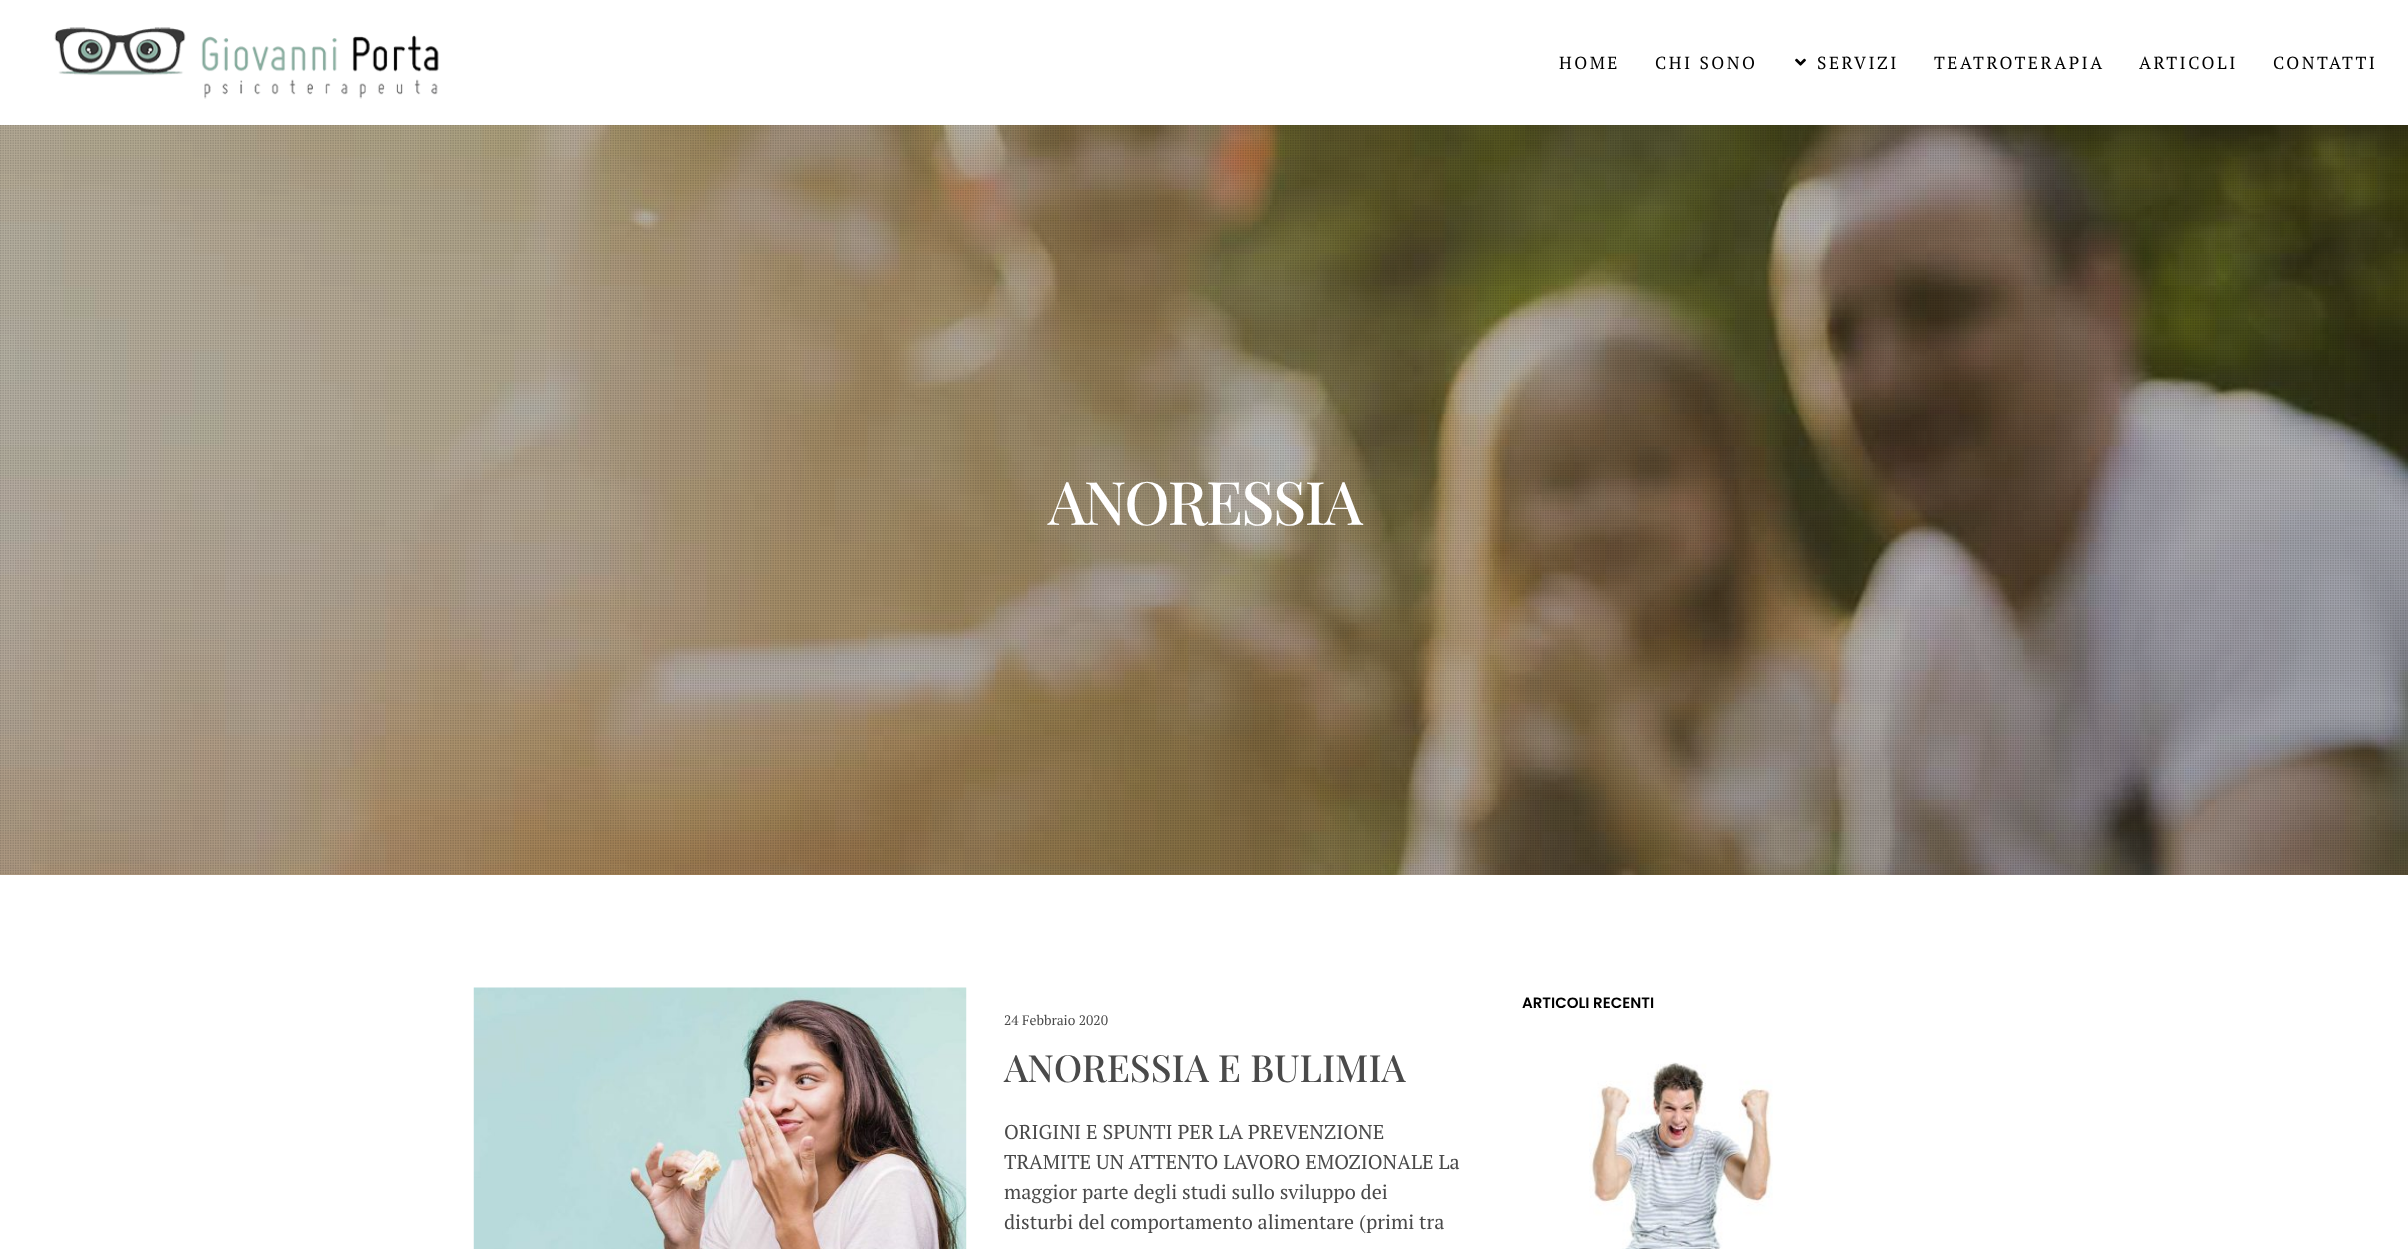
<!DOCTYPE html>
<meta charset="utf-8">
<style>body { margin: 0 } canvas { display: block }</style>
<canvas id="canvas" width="2408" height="1249"></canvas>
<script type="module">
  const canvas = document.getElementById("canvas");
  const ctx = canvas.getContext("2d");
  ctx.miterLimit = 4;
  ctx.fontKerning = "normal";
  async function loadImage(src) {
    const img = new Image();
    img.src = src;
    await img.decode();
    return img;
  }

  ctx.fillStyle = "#ffffff";
  ctx.fillRect(0, 0, 2408, 1249);
  ctx.drawImage(await loadImage("img1.png"), 54, 27, 385, 72);
  ctx.letterSpacing = "2.5px";
  ctx.font = "17.5px PT Serif";
  ctx.fillStyle = "#000000";
  ctx.fillText("HOME", 1559, 69);
  ctx.fillText("CHI SONO", 1655, 69);
  ctx.drawImage(await loadImage("img2.png"), 1795, 58, 11, 8);
  ctx.fillText("SERVIZI", 1817, 69);
  ctx.fillText("TEATROTERAPIA", 1934, 69);
  ctx.fillText("ARTICOLI", 2139, 69);
  ctx.fillText("CONTATTI", 2273, 69);
  ctx.drawImage(await loadImage("img3.png"), 0, 125, 2408, 750);
  ctx.drawImage(await loadImage("img4.png"), 0, 125, 2408, 749);
  ctx.letterSpacing = "-1.6px";
  ctx.font = "500 60px Playfair Display";
  ctx.fillStyle = "#ffffff";
  ctx.fillText("ANORESSIA", 1048, 525);
  ctx.letterSpacing = "0px";
  ctx.font = "600 15px Poppins";
  ctx.fillStyle = "#000000";
  ctx.fillText("ARTICOLI RECENTI", 1522, 1008);
  ctx.drawImage(await loadImage("img5.png"), 1589, 1062, 184, 187);
  ctx.drawImage(await loadImage("img6.png"), 473, 987, 494, 262);
  ctx.font = "13.75px PT Serif";
  ctx.fillStyle = "#4a4a4a";
  ctx.fillText("24 Febbraio 2020", 1004, 1025);
  ctx.font = "500 37.5px Playfair Display";
  ctx.fillText("ANORESSIA E BULIMIA", 1004, 1082);
  ctx.font = "20px PT Serif";
  ctx.fillText("ORIGINI E SPUNTI PER LA PREVENZIONE", 1004, 1139);
  ctx.fillText("TRAMITE UN ATTENTO LAVORO EMOZIONALE La", 1004, 1169);
  ctx.fillText("maggior parte degli studi sullo sviluppo dei", 1004, 1199);
  ctx.fillText("disturbi del comportamento alimentare (primi tra", 1004, 1229);
</script>
